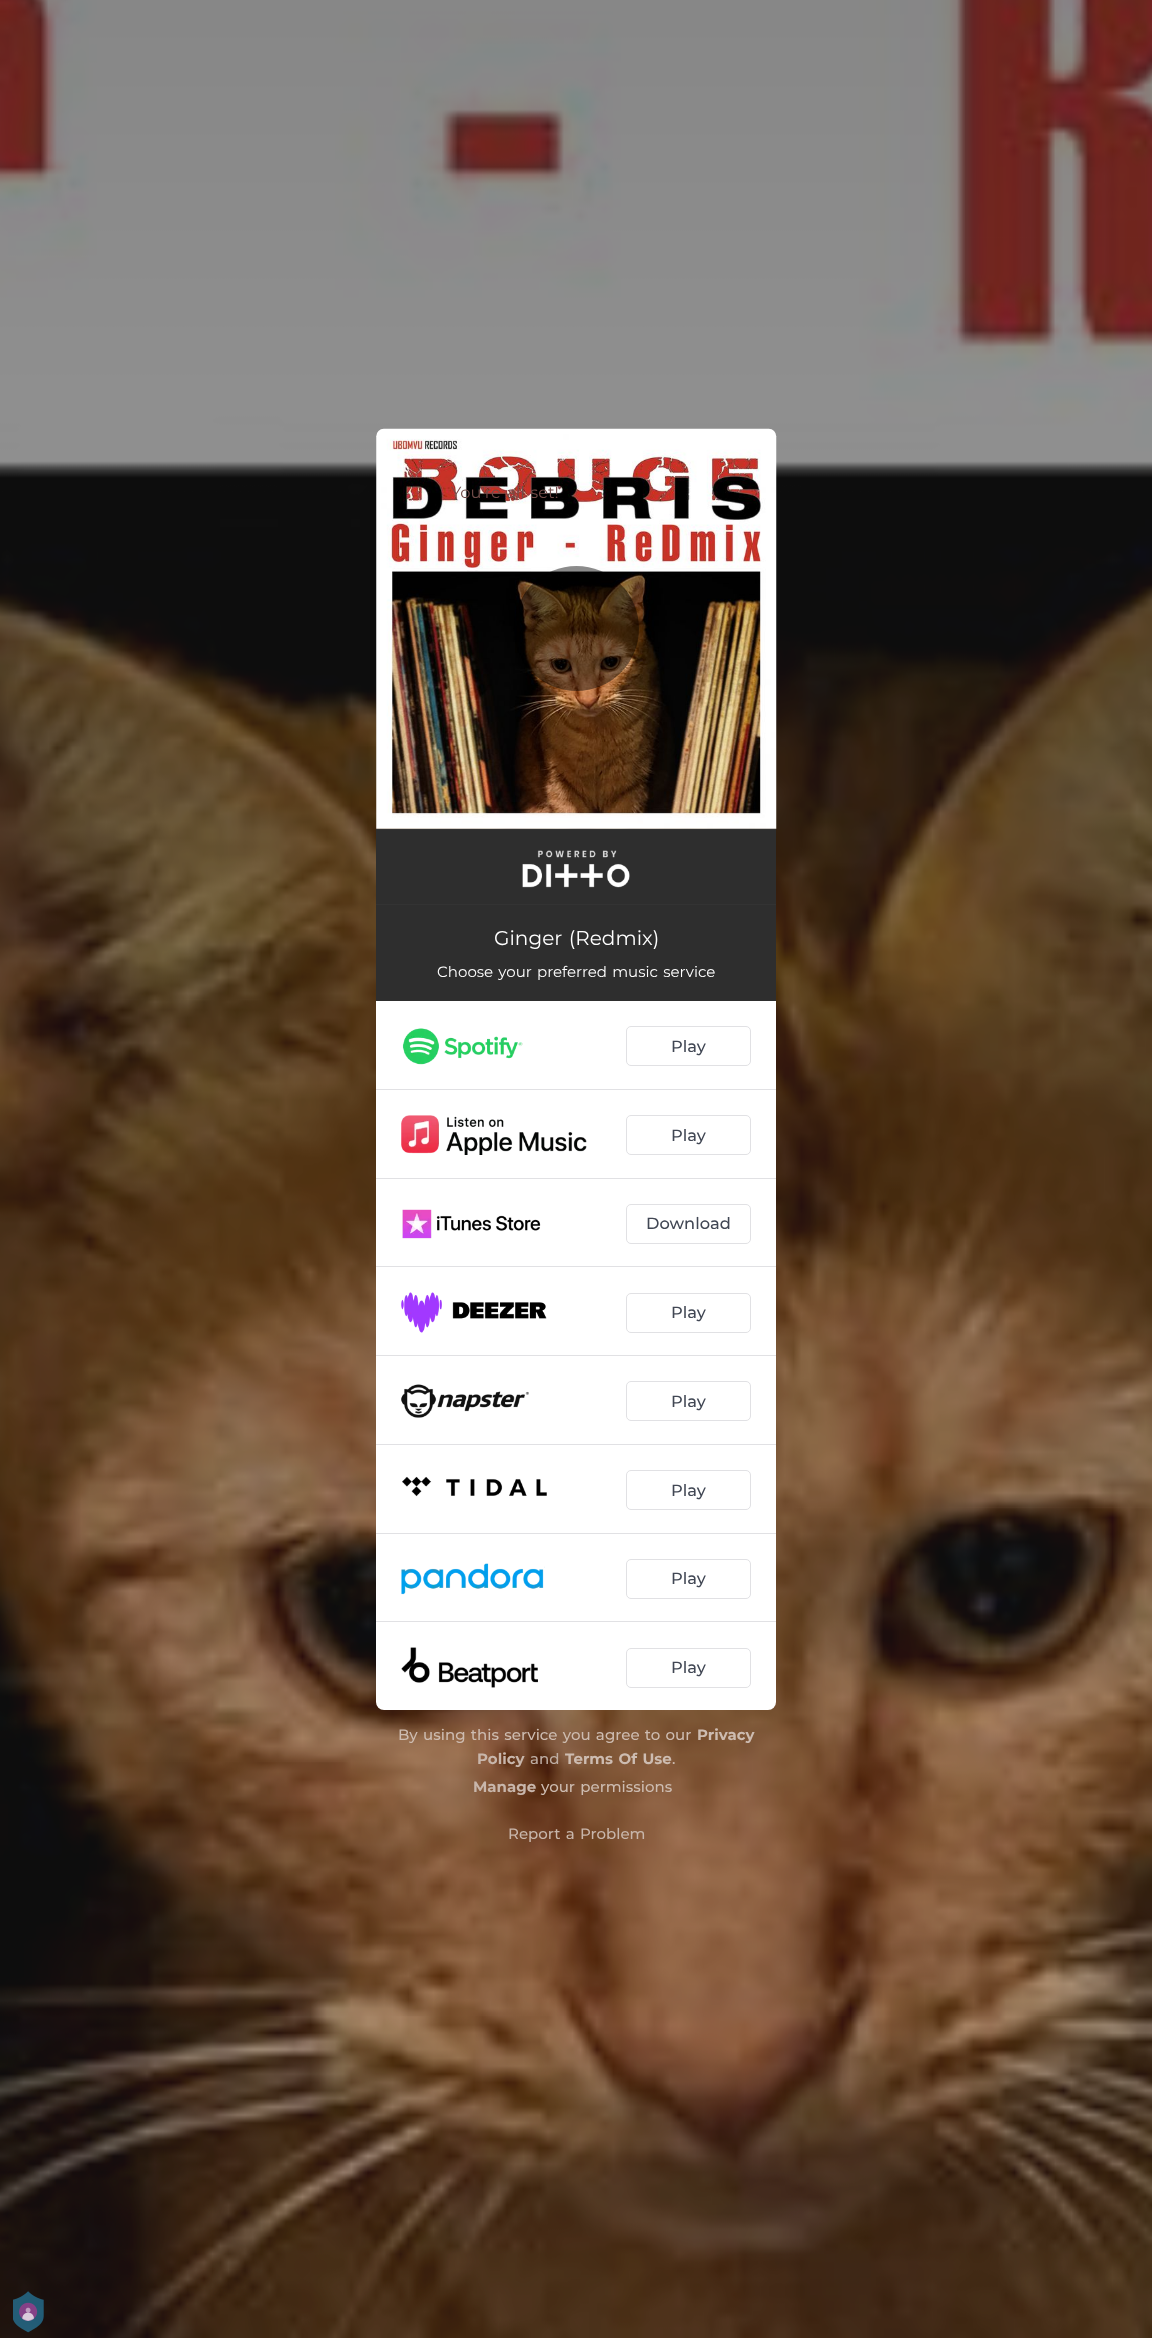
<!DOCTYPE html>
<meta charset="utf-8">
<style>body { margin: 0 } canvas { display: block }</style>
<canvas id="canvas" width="1152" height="2338"></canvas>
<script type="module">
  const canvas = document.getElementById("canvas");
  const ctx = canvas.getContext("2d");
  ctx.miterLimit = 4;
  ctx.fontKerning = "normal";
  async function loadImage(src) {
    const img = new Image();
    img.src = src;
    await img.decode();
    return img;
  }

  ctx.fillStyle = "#ffffff";
  ctx.fillRect(0, 0, 1152, 2338);
  ctx.drawImage(await loadImage("img1.png"), 0, 0, 1152, 2338);
  ctx.drawImage(await loadImage("img2.png"), 376, 428, 401, 401);
  ctx.fillStyle = "rgba(0, 0, 0, 0.45)";
  ctx.beginPath();
  ctx.arc(576.5, 628.5, 62.5, 0, Math.PI * 2);
  ctx.fill();
  ctx.wordSpacing = "1.25px";
  ctx.font = "16.25px Montserrat";
  ctx.fillStyle = "#734d4a";
  ctx.fillText("You're all set!", 451, 498);
  ctx.fillStyle = "#2e2e2e";
  ctx.fillRect(376, 830, 400, 74);
  ctx.fillStyle = "#333333";
  ctx.fillRect(376, 829, 400, 1);
  ctx.fillRect(376, 904, 400, 1);
  ctx.drawImage(await loadImage("img3.png"), 522, 850, 108, 38);
  ctx.fillStyle = "#2e2e2e";
  ctx.fillRect(376, 905, 400, 96);
  ctx.font = "20px Montserrat";
  ctx.fillStyle = "#ffffff";
  ctx.fillText("Ginger (Redmix)", 494, 945);
  ctx.font = "15px Montserrat";
  ctx.fillText("Choose your preferred music service", 437, 977);
  ctx.beginPath();
  ctx.roundRect(376, 1001, 400, 709, [0, 0, 8, 8]);
  ctx.fill();
  ctx.fillStyle = "#e1e1e4";
  ctx.fillRect(376, 1089, 400, 1);
  ctx.drawImage(await loadImage("img4.png"), 402, 1028, 121, 37);
  ctx.beginPath();
  ctx.roundRect(626.5, 1026.5, 124, 39, 4.5);
  ctx.strokeStyle = "#e1e1e4";
  ctx.stroke();
  ctx.wordSpacing = "0px";
  ctx.font = "500 16.25px Montserrat";
  ctx.fillStyle = "#414754";
  ctx.fillText("Play", 671, 1052);
  ctx.fillStyle = "#e1e1e4";
  ctx.fillRect(376, 1178, 400, 1);
  ctx.drawImage(await loadImage("img5.png"), 401, 1115, 186, 40);
  ctx.beginPath();
  ctx.roundRect(626.5, 1115.5, 124, 39, 4.5);
  ctx.stroke();
  ctx.fillStyle = "#414754";
  ctx.fillText("Play", 671, 1141);
  ctx.fillStyle = "#e1e1e4";
  ctx.fillRect(376, 1266, 400, 1);
  ctx.drawImage(await loadImage("img6.png"), 402, 1209, 139, 30);
  ctx.beginPath();
  ctx.roundRect(626.5, 1204.5, 124, 39, 4.5);
  ctx.stroke();
  ctx.fillStyle = "#414754";
  ctx.fillText("Download", 646, 1229);
  ctx.fillStyle = "#e1e1e4";
  ctx.fillRect(376, 1355, 400, 1);
  ctx.drawImage(await loadImage("img7.png"), 401, 1292, 146, 41);
  ctx.beginPath();
  ctx.roundRect(626.5, 1293.5, 124, 39, 4.5);
  ctx.stroke();
  ctx.fillStyle = "#414754";
  ctx.fillText("Play", 671, 1318);
  ctx.fillStyle = "#e1e1e4";
  ctx.fillRect(376, 1444, 400, 1);
  ctx.drawImage(await loadImage("img8.png"), 401, 1384, 128, 34);
  ctx.beginPath();
  ctx.roundRect(626.5, 1381.5, 124, 39, 4.5);
  ctx.stroke();
  ctx.fillStyle = "#414754";
  ctx.fillText("Play", 671, 1407);
  ctx.fillStyle = "#e1e1e4";
  ctx.fillRect(376, 1533, 400, 1);
  ctx.drawImage(await loadImage("img9.png"), 402, 1476, 145, 21);
  ctx.beginPath();
  ctx.roundRect(626.5, 1470.5, 124, 39, 4.5);
  ctx.stroke();
  ctx.fillStyle = "#414754";
  ctx.fillText("Play", 671, 1496);
  ctx.fillStyle = "#e1e1e4";
  ctx.fillRect(376, 1621, 400, 1);
  ctx.drawImage(await loadImage("img10.png"), 401, 1563, 144, 32);
  ctx.beginPath();
  ctx.roundRect(626.5, 1559.5, 124, 39, 4.5);
  ctx.stroke();
  ctx.fillStyle = "#414754";
  ctx.fillText("Play", 671, 1584);
  ctx.drawImage(await loadImage("img11.png"), 401, 1647, 137, 41);
  ctx.beginPath();
  ctx.roundRect(626.5, 1648.5, 124, 39, 4.5);
  ctx.stroke();
  ctx.fillText("Play", 671, 1673);
  ctx.wordSpacing = "1.25px";
  ctx.font = "500 15px Montserrat";
  ctx.fillStyle = "#cdbcb1";
  ctx.fillText("By using this service you agree to our", 398, 1740);
  ctx.wordSpacing = "0px";
  ctx.font = "bold 15px Montserrat";
  ctx.fillText("Privacy", 697, 1740);
  ctx.fillStyle = "#c8b6ab";
  ctx.fillText("Policy", 477, 1764);
  ctx.font = "500 15px Montserrat";
  ctx.fillStyle = "#beaea4";
  ctx.fillText("and", 530, 1764);
  ctx.wordSpacing = "1.25px";
  ctx.font = "bold 15px Montserrat";
  ctx.fillStyle = "#cdbcb1";
  ctx.fillText("Terms Of Use", 565, 1764);
  ctx.wordSpacing = "0px";
  ctx.font = "500 15px Montserrat";
  ctx.fillText(".", 672, 1764);
  ctx.font = "bold 15px Montserrat";
  ctx.fillStyle = "#c8b6ab";
  ctx.fillText("Manage", 473, 1792);
  ctx.wordSpacing = "1.25px";
  ctx.font = "500 15px Montserrat";
  ctx.fillStyle = "#cdbcb1";
  ctx.fillText("your permissions", 541, 1792);
  ctx.fillStyle = "#c8b6ab";
  ctx.fillText("Report a Problem", 508, 1839);
  ctx.drawImage(await loadImage("img12.png"), 13, 2291, 31, 42);
</script>
